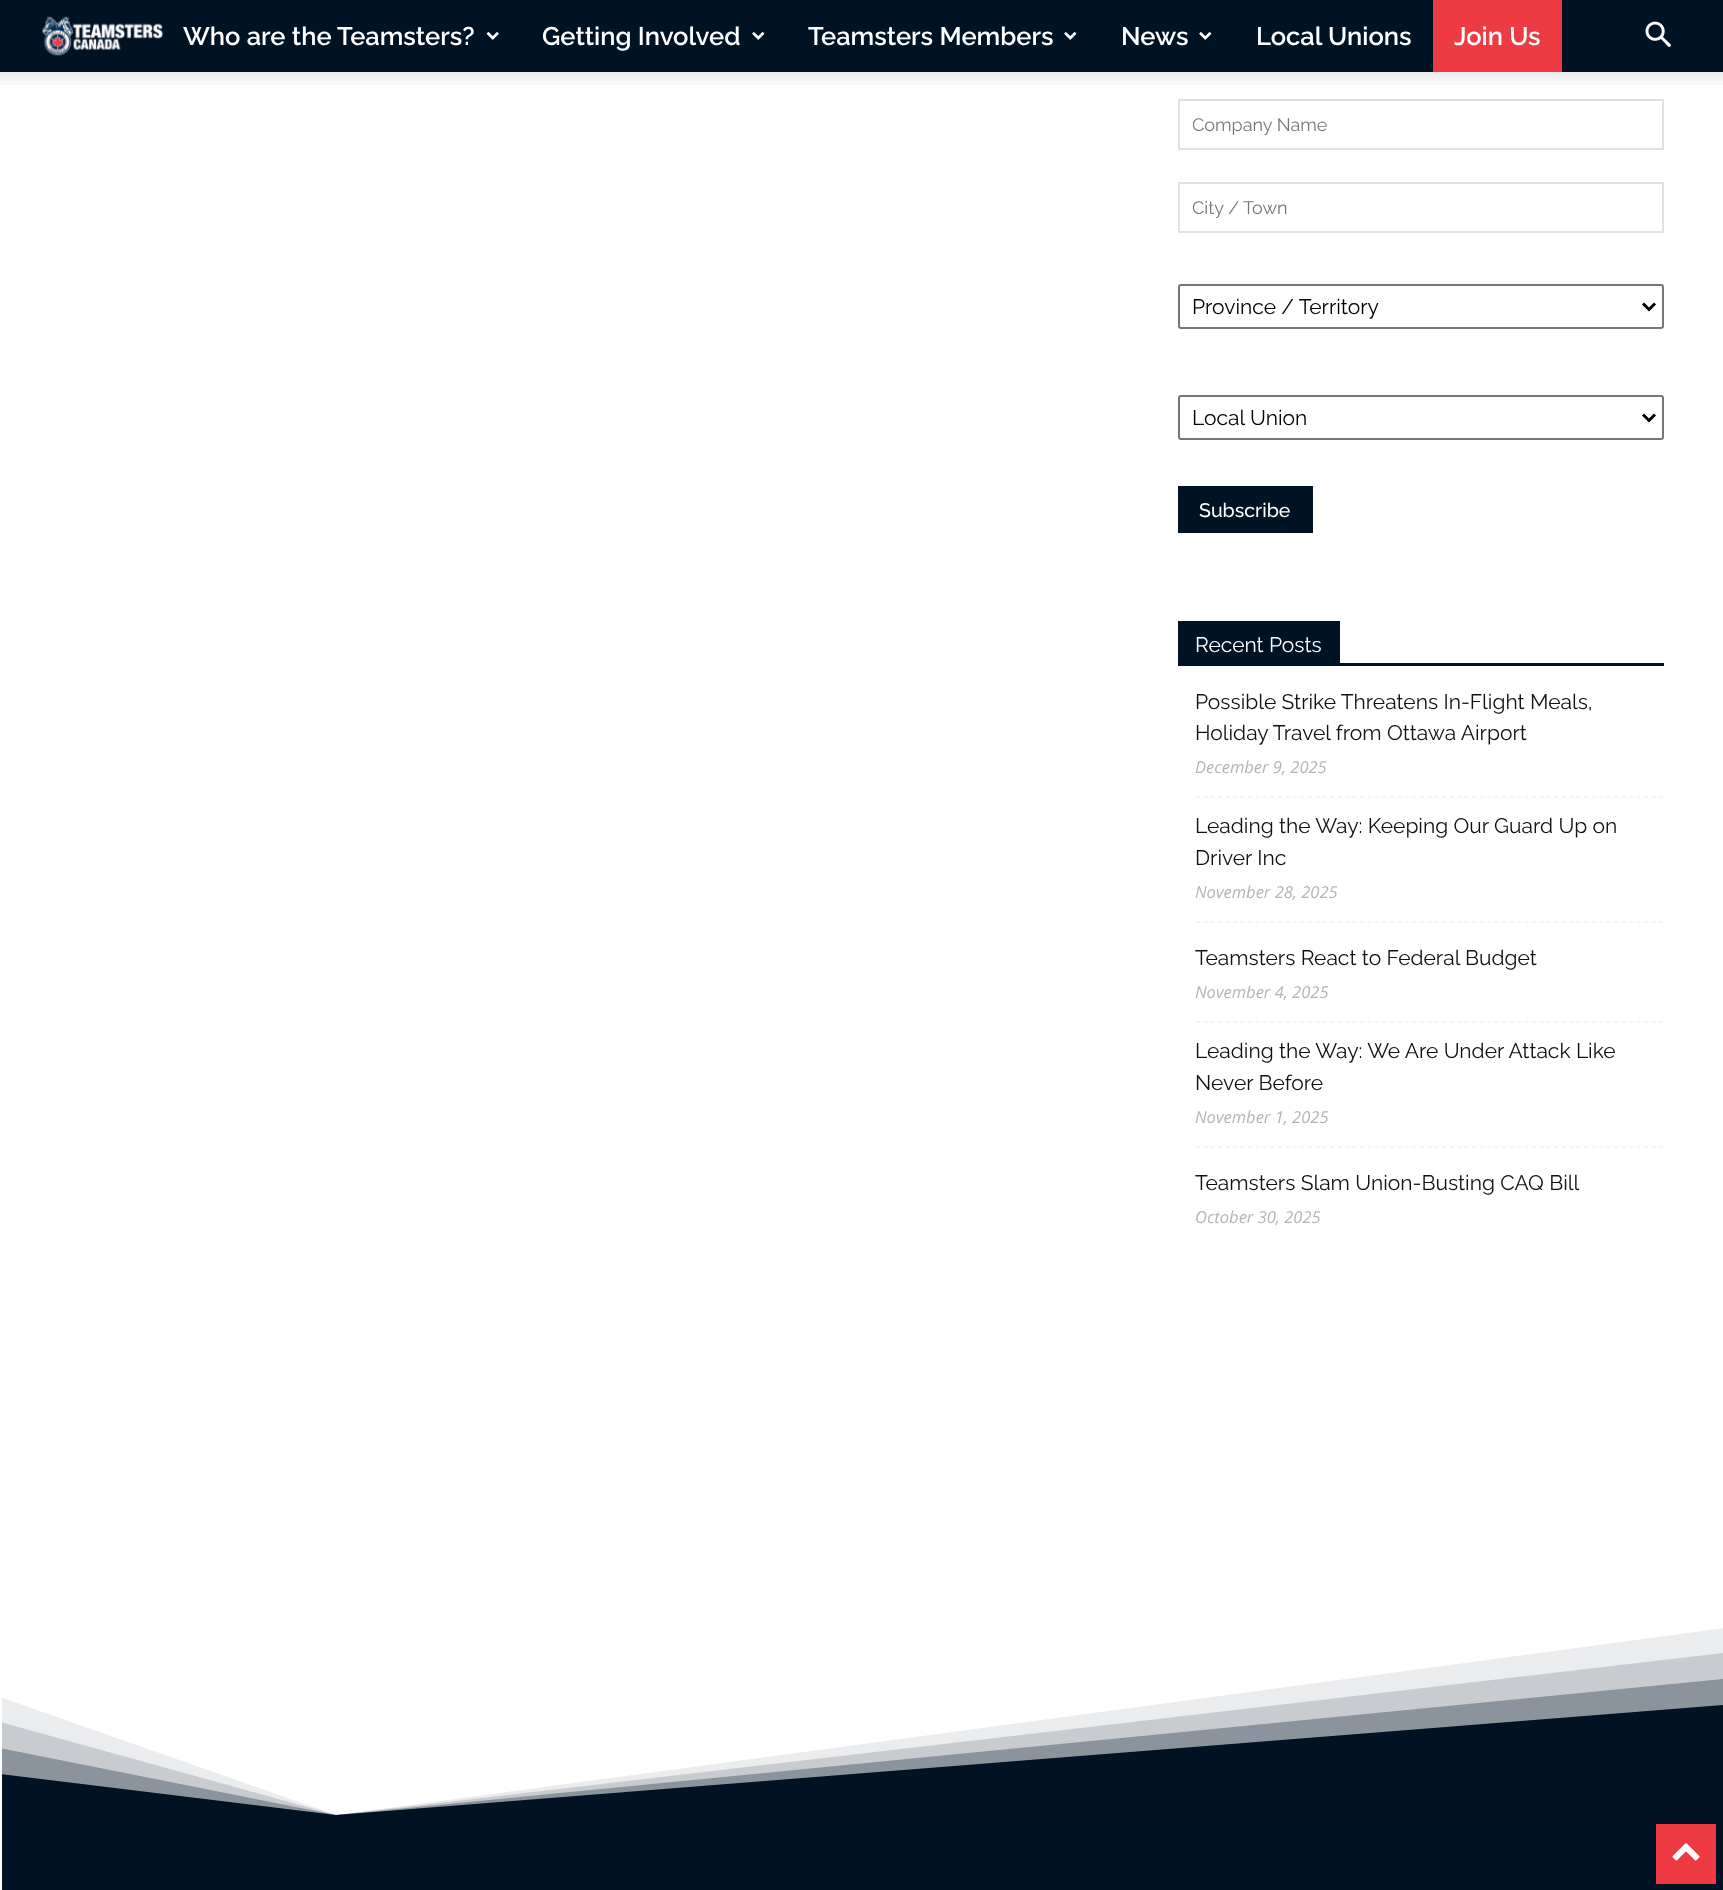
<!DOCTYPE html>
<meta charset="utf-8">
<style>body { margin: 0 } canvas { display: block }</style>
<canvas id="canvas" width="1723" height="1890"></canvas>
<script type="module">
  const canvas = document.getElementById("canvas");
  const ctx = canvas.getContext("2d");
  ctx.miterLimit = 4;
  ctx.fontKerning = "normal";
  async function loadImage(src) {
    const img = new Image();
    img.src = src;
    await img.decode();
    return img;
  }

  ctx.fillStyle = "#ffffff";
  ctx.fillRect(0, 0, 1723, 1890);
  ctx.fillStyle = "#001325";
  ctx.fillRect(0, 0, 1723, 72);
  ctx.drawImage(await loadImage("img1.png"), 42, 16, 122, 40);
  ctx.font = "600 25.5px Raleway";
  ctx.fillStyle = "#ffffff";
  ctx.fillText("Who are the Teamsters?", 183, 45);
  ctx.drawImage(await loadImage("img2.png"), 486, 32, 13, 8);
  ctx.fillText("Getting Involved", 542, 45);
  ctx.drawImage(await loadImage("img3.png"), 752, 32, 13, 8);
  ctx.fillText("Teamsters Members", 808, 45);
  ctx.drawImage(await loadImage("img3.png"), 1064, 32, 13, 8);
  ctx.fillText("News", 1121, 45);
  ctx.drawImage(await loadImage("img3.png"), 1199, 32, 13, 8);
  ctx.fillText("Local Unions", 1256, 45);
  ctx.fillStyle = "#ee3a43";
  ctx.fillRect(1433, 0, 129, 72);
  ctx.fillStyle = "#ffffff";
  ctx.fillText("Join Us", 1454, 45);
  ctx.drawImage(await loadImage("img4.png"), 1645, 21, 26, 26);
  ctx.drawImage(await loadImage("img5.png"), 0, 72, 1723, 13);
  ctx.strokeStyle = "#e1e1e1";
  ctx.lineWidth = 2;
  ctx.strokeRect(1179, 100, 484, 49);
  ctx.save();
  ctx.beginPath();
  ctx.rect(1193, 114, 456, 21);
  ctx.clip();
  ctx.font = "18px Raleway";
  ctx.fillStyle = "#757575";
  ctx.fillText("Company Name", 1192, 131);
  ctx.restore();
  ctx.strokeRect(1179, 183, 484, 49);
  ctx.save();
  ctx.beginPath();
  ctx.rect(1193, 197, 456, 21);
  ctx.clip();
  ctx.font = "18px Raleway";
  ctx.fillStyle = "#757575";
  ctx.fillText("City / Town", 1192, 214);
  ctx.restore();
  ctx.beginPath();
  ctx.roundRect(1179, 285, 484, 43, 2);
  ctx.strokeStyle = "#767676";
  ctx.stroke();
  ctx.beginPath();
  ctx.moveTo(1643, 303.5);
  ctx.lineTo(1649, 309.5);
  ctx.lineTo(1655, 303.5);
  ctx.strokeStyle = "#000000";
  ctx.lineWidth = 3;
  ctx.stroke();
  ctx.font = "21px Raleway";
  ctx.fillStyle = "#000000";
  ctx.fillText("Province / Territory", 1192, 314);
  ctx.beginPath();
  ctx.roundRect(1179, 396, 484, 43, 2);
  ctx.strokeStyle = "#767676";
  ctx.lineWidth = 2;
  ctx.stroke();
  ctx.beginPath();
  ctx.moveTo(1643, 414.5);
  ctx.lineTo(1649, 420.5);
  ctx.lineTo(1655, 414.5);
  ctx.strokeStyle = "#000000";
  ctx.lineWidth = 3;
  ctx.stroke();
  ctx.fillText("Local Union", 1192, 425);
  ctx.fillStyle = "#001325";
  ctx.fillRect(1178, 486, 135, 47);
  ctx.font = "500 19.5px Raleway";
  ctx.fillStyle = "#ffffff";
  ctx.fillText("Subscribe", 1199, 517);
  ctx.fillStyle = "#001325";
  ctx.fillRect(1178, 663, 486, 3);
  ctx.fillRect(1178, 621, 162, 42);
  ctx.font = "21px Raleway";
  ctx.fillStyle = "#ffffff";
  ctx.fillText("Recent Posts", 1195, 652);
  ctx.beginPath();
  ctx.moveTo(1195.5, 797);
  ctx.lineTo(1663.5, 797);
  ctx.strokeStyle = "#f1f1f1";
  ctx.lineWidth = 1.5;
  ctx.setLineDash([4.5, 2.97]);
  ctx.stroke();
  ctx.fillStyle = "#111111";
  ctx.fillText("Possible Strike Threatens In-Flight Meals,", 1195, 709);
  ctx.fillText("Holiday Travel from Ottawa Airport", 1195, 740);
  ctx.font = "italic 16.5px Open Sans";
  ctx.fillStyle = "#b5b5b5";
  ctx.fillText("December 9, 2025", 1195, 773);
  ctx.beginPath();
  ctx.moveTo(1195.5, 922);
  ctx.lineTo(1663.5, 922);
  ctx.stroke();
  ctx.font = "21px Raleway";
  ctx.fillStyle = "#111111";
  ctx.fillText("Leading the Way: Keeping Our Guard Up on", 1195, 833);
  ctx.fillText("Driver Inc", 1195, 865);
  ctx.font = "italic 16.5px Open Sans";
  ctx.fillStyle = "#b5b5b5";
  ctx.fillText("November 28, 2025", 1195, 898);
  ctx.beginPath();
  ctx.moveTo(1195.5, 1022);
  ctx.lineTo(1663.5, 1022);
  ctx.stroke();
  ctx.font = "21px Raleway";
  ctx.fillStyle = "#111111";
  ctx.fillText("Teamsters React to Federal Budget", 1195, 965);
  ctx.font = "italic 16.5px Open Sans";
  ctx.fillStyle = "#b5b5b5";
  ctx.fillText("November 4, 2025", 1195, 998);
  ctx.beginPath();
  ctx.moveTo(1195.5, 1147);
  ctx.lineTo(1663.5, 1147);
  ctx.stroke();
  ctx.font = "21px Raleway";
  ctx.fillStyle = "#111111";
  ctx.fillText("Leading the Way: We Are Under Attack Like", 1195, 1058);
  ctx.fillText("Never Before", 1195, 1090);
  ctx.font = "italic 16.5px Open Sans";
  ctx.fillStyle = "#b5b5b5";
  ctx.fillText("November 1, 2025", 1195, 1123);
  ctx.font = "21px Raleway";
  ctx.fillStyle = "#111111";
  ctx.fillText("Teamsters Slam Union-Busting CAQ Bill", 1195, 1190);
  ctx.font = "italic 16.5px Open Sans";
  ctx.fillStyle = "#b5b5b5";
  ctx.fillText("October 30, 2025", 1195, 1223);
  ctx.save();
  ctx.beginPath();
  ctx.rect(2, 1482, 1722, 344);
  ctx.clip();
  ctx.fillStyle = "#001325";
  ctx.beginPath();
  ctx.moveTo(0, 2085);
  ctx.lineTo(0, 1774);
  ctx.lineTo(336, 1815);
  ctx.lineTo(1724, 1705);
  ctx.lineTo(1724, 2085);
  ctx.closePath();
  ctx.fill();
  ctx.fillStyle = "rgba(0, 19, 37, 0.3)";
  ctx.beginPath();
  ctx.moveTo(0, 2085);
  ctx.lineTo(0, 1748);
  ctx.lineTo(336, 1815);
  ctx.lineTo(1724, 1679);
  ctx.lineTo(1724, 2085);
  ctx.closePath();
  ctx.fill();
  ctx.fillStyle = "rgba(0, 19, 37, 0.15)";
  ctx.beginPath();
  ctx.moveTo(0, 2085);
  ctx.lineTo(0, 1722);
  ctx.lineTo(336, 1815);
  ctx.lineTo(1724, 1653);
  ctx.lineTo(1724, 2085);
  ctx.closePath();
  ctx.fill();
  ctx.fillStyle = "rgba(0, 19, 37, 0.08)";
  ctx.beginPath();
  ctx.moveTo(0, 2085);
  ctx.lineTo(0, 1697);
  ctx.lineTo(336, 1815);
  ctx.lineTo(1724, 1628);
  ctx.lineTo(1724, 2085);
  ctx.closePath();
  ctx.fill();
  ctx.restore();
  ctx.fillStyle = "#001325";
  ctx.fillRect(2, 1826, 1721, 64);
  ctx.fillStyle = "#ee3a43";
  ctx.fillRect(1656, 1824, 60, 60);
  ctx.drawImage(await loadImage("img6.png"), 1672, 1843, 28, 18);
</script>
